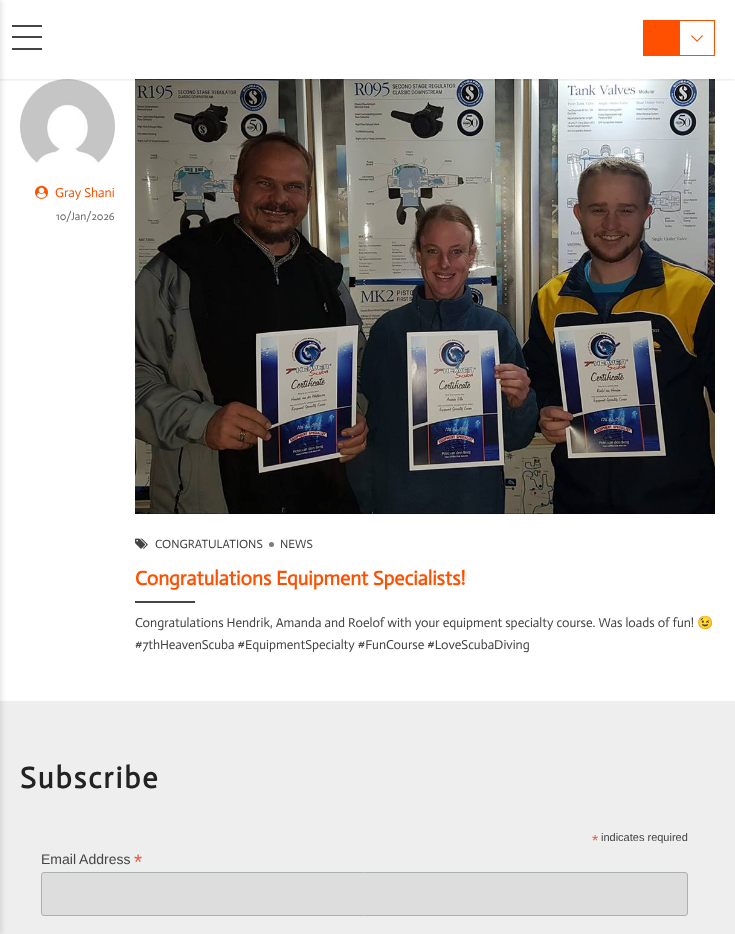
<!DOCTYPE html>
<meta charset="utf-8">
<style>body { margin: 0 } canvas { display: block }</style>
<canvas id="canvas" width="735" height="934"></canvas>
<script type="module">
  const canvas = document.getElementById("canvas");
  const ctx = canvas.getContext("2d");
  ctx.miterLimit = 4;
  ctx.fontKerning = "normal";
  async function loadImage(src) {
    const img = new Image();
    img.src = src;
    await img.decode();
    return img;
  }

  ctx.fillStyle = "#ffffff";
  ctx.fillRect(0, 0, 735, 934);
  ctx.fillStyle = "#eeeeee";
  ctx.fillRect(0, 701, 735, 233);
  ctx.fillStyle = "rgba(0, 0, 0, 0.1)";
  ctx.filter = "blur(2.5px)";
  ctx.beginPath();
  ctx.rect(-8, 0, 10, 934);
  ctx.fill();
  ctx.filter = "none";
  ctx.drawImage(await loadImage("img2.png"), 20, 79, 95, 84);
  ctx.drawImage(await loadImage("img4.png"), 135, 79, 580, 435);
  ctx.save();
  ctx.beginPath();
  ctx.rect(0, 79, 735, 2);
  ctx.clip();
  ctx.filter = "blur(1.5px)";
  ctx.beginPath();
  ctx.rect(0, 1, 735, 79);
  ctx.fill();
  ctx.filter = "none";
  ctx.restore();
  ctx.fillStyle = "#444444";
  ctx.fillRect(12, 25, 30, 2);
  ctx.fillRect(12, 36, 30, 2);
  ctx.fillRect(12, 48, 30, 2);
  ctx.fillStyle = "#fe5000";
  ctx.fillRect(643, 20, 36, 36);
  ctx.strokeStyle = "#fe5000";
  ctx.strokeRect(679.5, 20.5, 35, 35);
  ctx.drawImage(await loadImage("img1.png"), 691, 35, 12, 7);
  ctx.drawImage(await loadImage("img3.png"), 35, 185, 13, 14);
  ctx.font = "13px Actor";
  ctx.fillText("Gray Shani", 55, 197);
  ctx.font = "11px Actor";
  ctx.fillStyle = "#696969";
  ctx.fillText("10/Jan/2026", 56, 220);
  ctx.drawImage(await loadImage("img5.png"), 135, 538, 13, 11);
  ctx.font = "12px Actor";
  ctx.fillStyle = "#444444";
  ctx.fillText("CONGRATULATIONS", 155, 548);
  ctx.fillStyle = "#7c7c7c";
  ctx.beginPath();
  ctx.arc(271.5, 544.5, 2.5, 0, Math.PI * 2);
  ctx.fill();
  ctx.fillStyle = "#444444";
  ctx.fillText("NEWS", 280, 548);
  ctx.font = "bold 20px Actor";
  ctx.fillStyle = "#fe5000";
  ctx.fillText("Congratulations Equipment Specialists!", 135, 585);
  ctx.fillStyle = "#444444";
  ctx.fillRect(135, 601, 60, 2);
  ctx.font = "13px Actor";
  ctx.fillText("Congratulations Hendrik, Amanda and Roelof with your equipment specialty course. Was loads of fun!", 135, 627);
  ctx.font = "13px Noto Color Emoji";
  ctx.fillText("😉", 697, 627);
  ctx.font = "13px Actor";
  ctx.fillText("#7thHeavenScuba #EquipmentSpecialty #FunCourse #LoveScubaDiving", 135, 649);
  ctx.letterSpacing = "2px";
  ctx.font = "bold 30px Actor";
  ctx.fillStyle = "#222222";
  ctx.fillText("Subscribe", 20, 788);
  ctx.letterSpacing = "0px";
  ctx.font = "16px Liberation Sans";
  ctx.fillStyle = "#e85c41";
  ctx.fillText("*", 592, 846);
  ctx.font = "11px Liberation Sans";
  ctx.fillStyle = "#444444";
  ctx.fillText("indicates required", 601, 841);
  ctx.font = "14px Liberation Sans";
  ctx.fillText("Email Address", 41, 864);
  ctx.font = "21px Liberation Sans";
  ctx.fillStyle = "#e85c41";
  ctx.fillText("*", 134, 869);
  ctx.fillStyle = "#dddddd";
  ctx.beginPath();
  ctx.roundRect(41.5, 872.5, 646, 43, 2.5);
  ctx.fill();
  ctx.strokeStyle = "#abb0b2";
  ctx.stroke();
</script>
